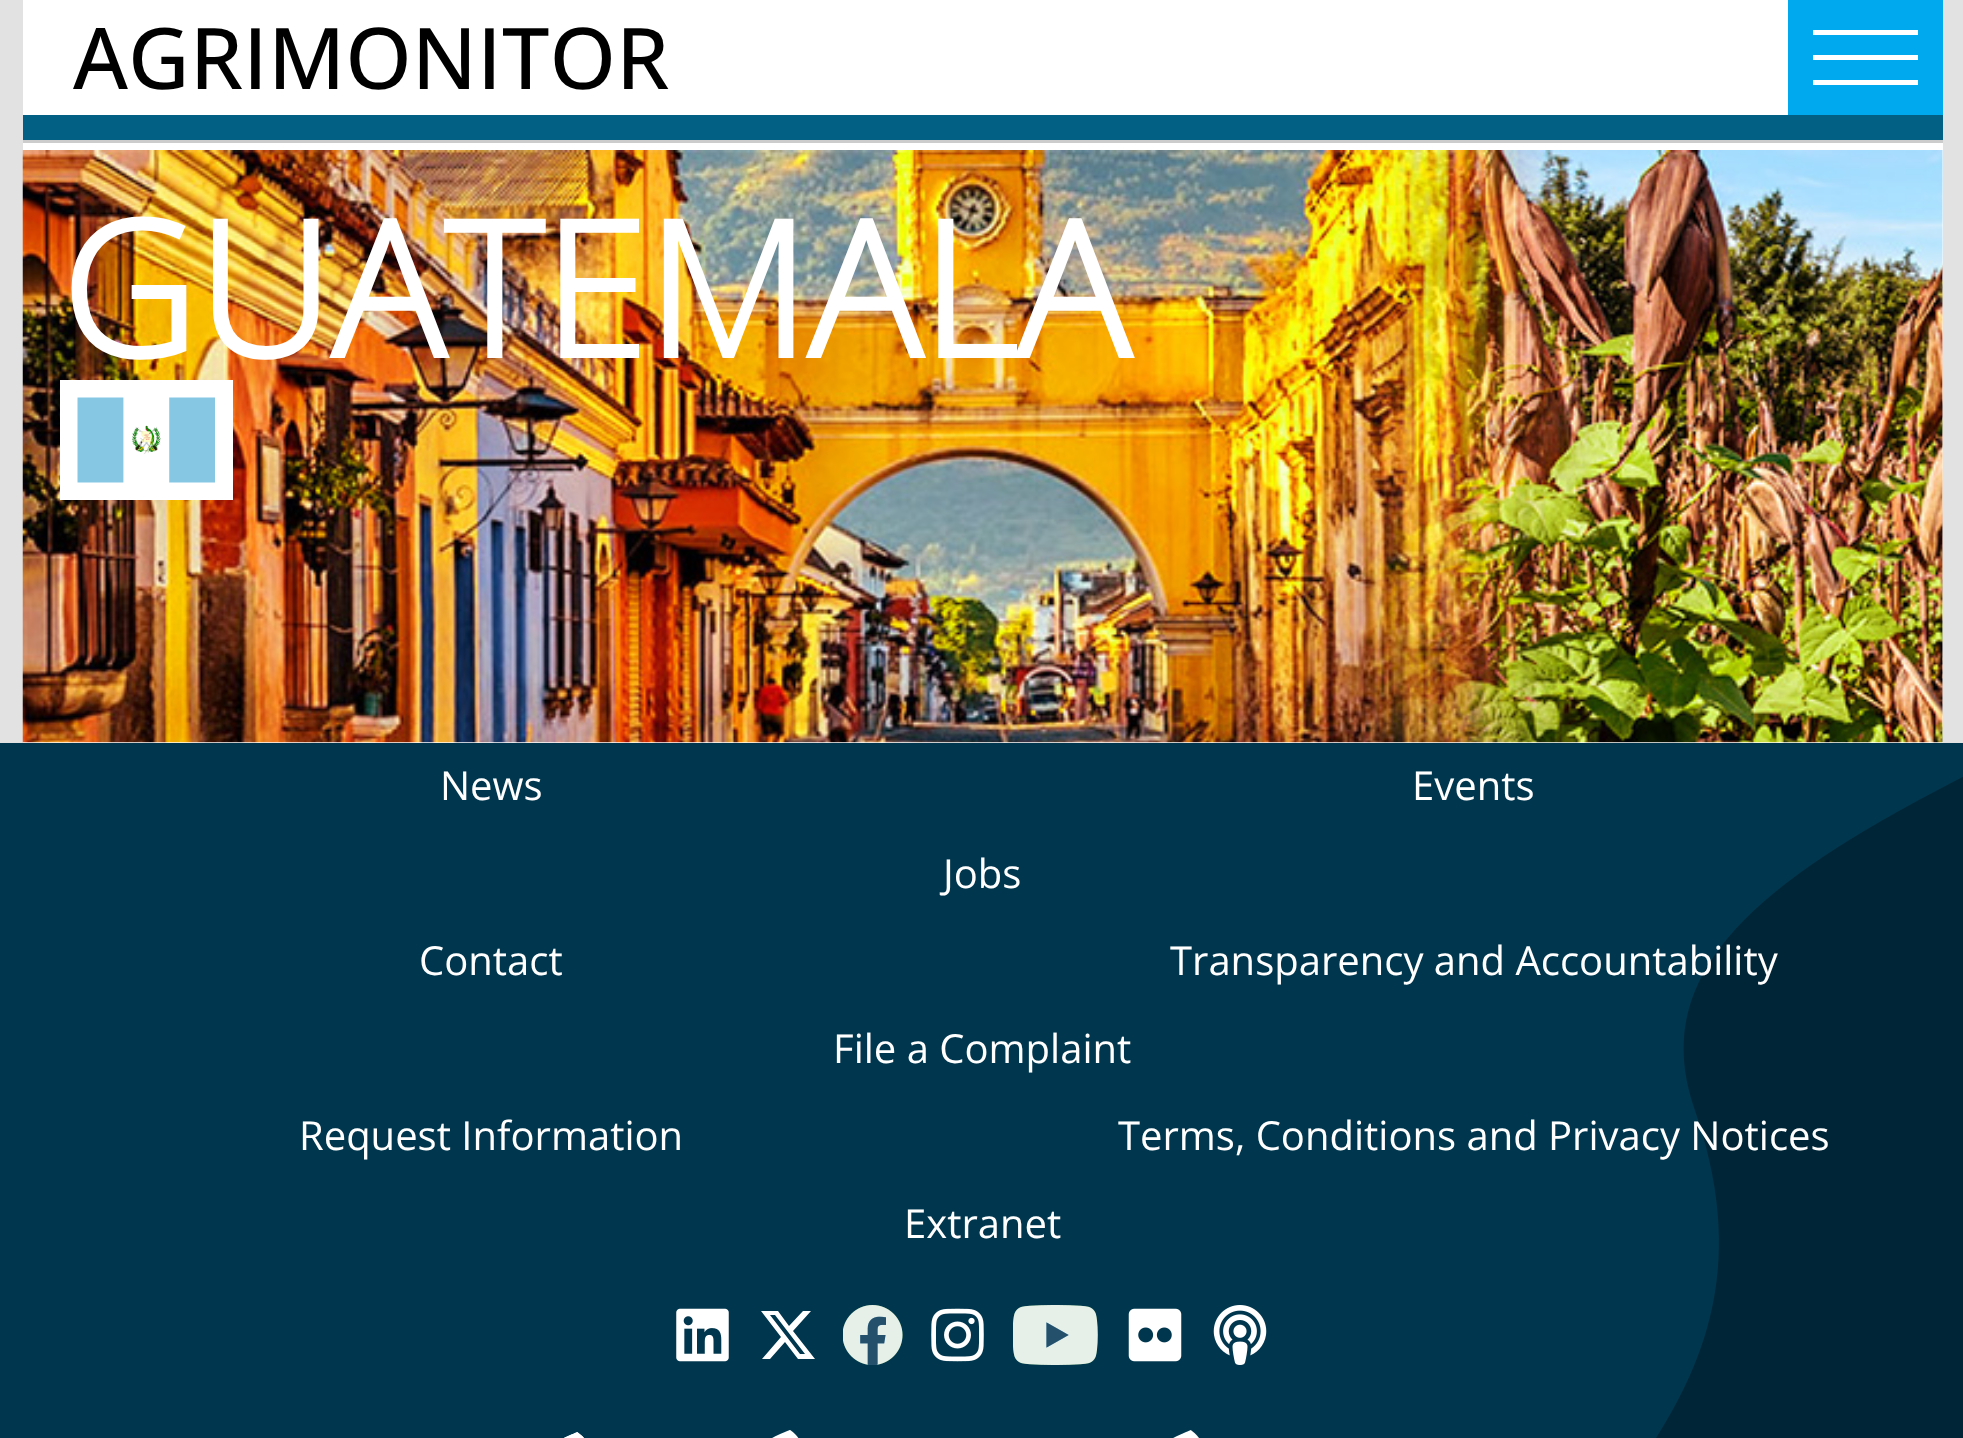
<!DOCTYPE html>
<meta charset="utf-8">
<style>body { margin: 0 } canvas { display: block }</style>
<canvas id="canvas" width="1963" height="1438"></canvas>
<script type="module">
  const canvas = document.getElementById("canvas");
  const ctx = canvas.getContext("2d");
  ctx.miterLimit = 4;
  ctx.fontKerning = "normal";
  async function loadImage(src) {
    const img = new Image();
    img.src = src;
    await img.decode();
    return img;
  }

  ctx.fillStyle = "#00374e";
  ctx.fillRect(0, 0, 1963, 1438);
  ctx.fillStyle = "#e2e2e2";
  ctx.fillRect(0, 0, 1963, 743);
  ctx.fillStyle = "#ffffff";
  ctx.fillRect(23, 0, 1765, 115);
  ctx.fillStyle = "#036085";
  ctx.fillRect(23, 115, 1920, 25);
  ctx.font = "500 85px Open Sans";
  ctx.fillStyle = "#000000";
  ctx.fillText("AGRIMONITOR", 73, 89);
  ctx.fillStyle = "#00a9ee";
  ctx.fillRect(1788, 0, 155, 115);
  ctx.fillStyle = "#ffffff";
  ctx.fillRect(1813, 30, 105, 5);
  ctx.fillRect(1813, 55, 105, 5);
  ctx.fillRect(1813, 80, 105, 5);
  ctx.fillRect(23, 143, 1920, 600);
  ctx.fillStyle = "#cccccc";
  ctx.fillRect(23, 140, 1920, 3);
  ctx.drawImage(await loadImage("img1.png"), 22, 150, 1921, 593);
  ctx.font = "bold 187.5px Open Sans";
  ctx.fillStyle = "#ffffff";
  ctx.fillText("GUATEMALA", 60, 358);
  ctx.fillRect(60, 380, 173, 120);
  ctx.drawImage(await loadImage("img2.png"), 77, 397, 138, 86);
  ctx.drawImage(await loadImage("img3.png"), 1656, 777, 307, 661);
  ctx.font = "40px Open Sans";
  ctx.fillText("News", 440, 800);
  ctx.fillText("Events", 1412, 800);
  ctx.fillText("Jobs", 943, 888);
  ctx.fillText("Contact", 419, 975);
  ctx.fillText("Transparency and Accountability", 1170, 975);
  ctx.fillText("File a Complaint", 833, 1063);
  ctx.fillText("Request Information", 299, 1150);
  ctx.fillText("Terms, Conditions and Privacy Notices", 1118, 1150);
  ctx.fillText("Extranet", 904, 1238);
  ctx.drawImage(await loadImage("img4.png"), 676, 1308, 53, 54);
  ctx.beginPath();
  ctx.moveTo(803, 1311);
  ctx.lineTo(811, 1311);
  ctx.lineTo(793, 1331);
  ctx.lineTo(815, 1359);
  ctx.lineTo(798, 1359);
  ctx.lineTo(785, 1342);
  ctx.lineTo(770, 1359);
  ctx.lineTo(762, 1359);
  ctx.lineTo(781, 1337);
  ctx.lineTo(761, 1311);
  ctx.lineTo(778, 1311);
  ctx.lineTo(789, 1326);
  ctx.closePath();
  ctx.moveTo(800, 1354);
  ctx.lineTo(805, 1354);
  ctx.lineTo(775, 1315);
  ctx.lineTo(770, 1315);
  ctx.closePath();
  ctx.fill();
  ctx.drawImage(await loadImage("img5.png"), 843, 1305, 60, 60);
  ctx.drawImage(await loadImage("img6.png"), 931, 1308, 53, 54);
  ctx.drawImage(await loadImage("img7.png"), 1013, 1305, 85, 60);
  ctx.drawImage(await loadImage("img8.png"), 1128, 1308, 54, 54);
  ctx.drawImage(await loadImage("img9.png"), 1213, 1305, 54, 60);
  ctx.drawImage(await loadImage("img10.png"), 564, 1432, 20, 6);
  ctx.drawImage(await loadImage("img11.png"), 772, 1430, 27, 8);
  ctx.drawImage(await loadImage("img12.png"), 1173, 1430, 26, 8);
</script>
